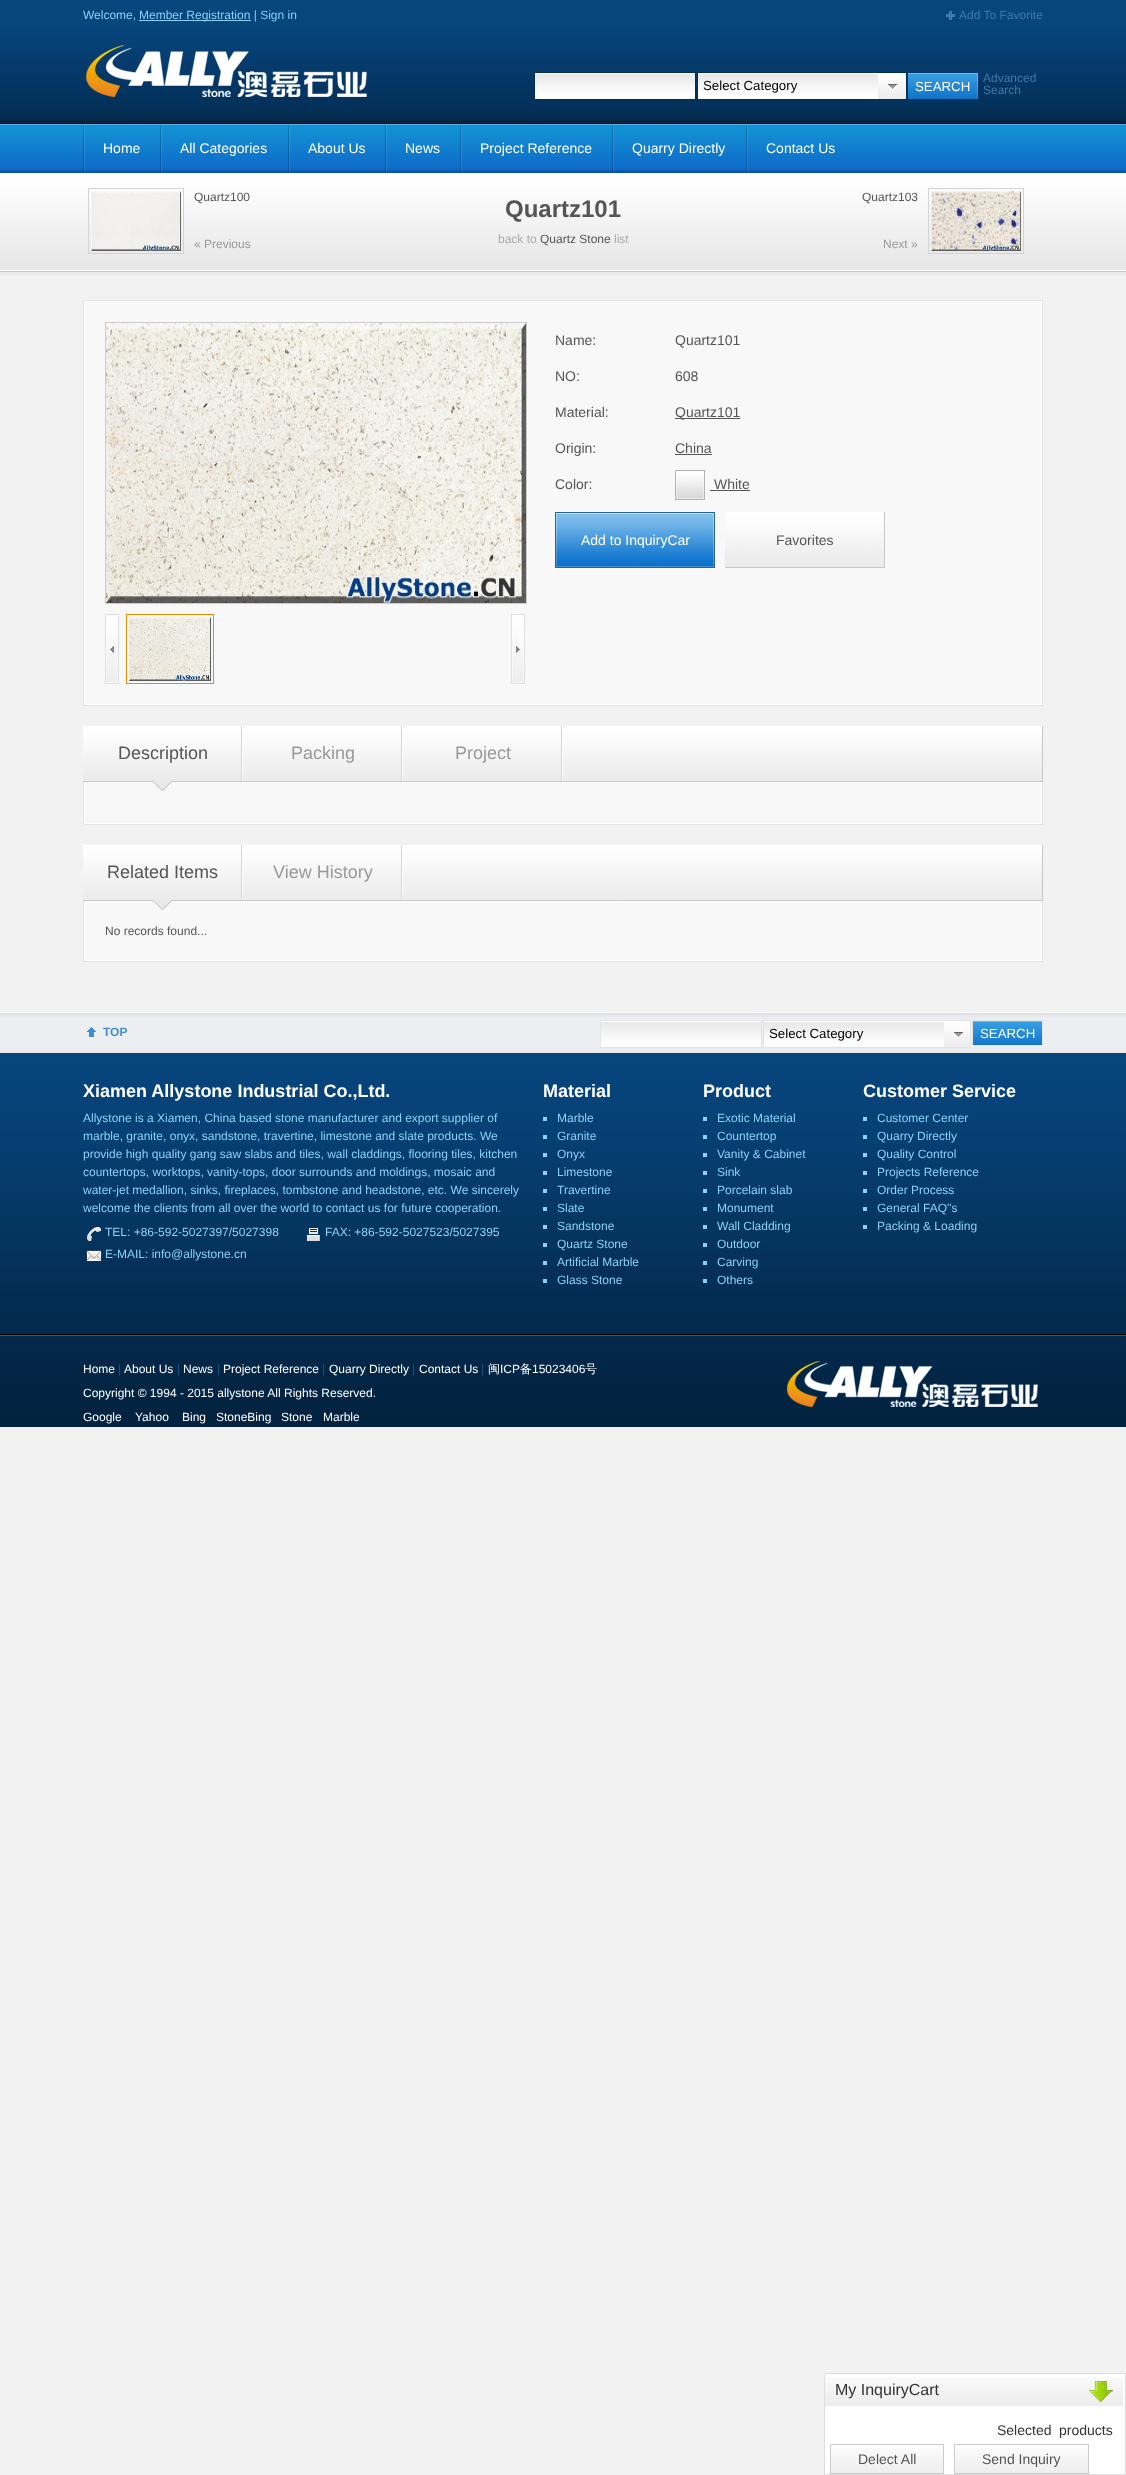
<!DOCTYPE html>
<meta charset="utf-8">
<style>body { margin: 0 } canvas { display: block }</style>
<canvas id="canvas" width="1126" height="2475"></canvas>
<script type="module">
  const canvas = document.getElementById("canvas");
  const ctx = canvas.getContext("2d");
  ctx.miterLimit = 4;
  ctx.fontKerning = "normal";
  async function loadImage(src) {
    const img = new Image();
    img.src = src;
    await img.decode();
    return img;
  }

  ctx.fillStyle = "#f2f2f2";
  ctx.fillRect(0, 0, 1126, 2475);
  ctx.drawImage(await loadImage("img1.png"), 0, 0, 1126, 173);
  ctx.font = "12px Liberation Sans";
  ctx.fillStyle = "#8bd1f6";
  ctx.fillText("Welcome,", 83, 19);
  ctx.fillRect(139, 20, 112, 1);
  ctx.fillText("Member Registration | Sign in", 139, 19);
  ctx.drawImage(await loadImage("img2.png"), 946, 11, 9, 9);
  ctx.fillStyle = "#4079ab";
  ctx.fillText("Add To Favorite", 959, 19);
  ctx.drawImage(await loadImage("img3.png"), 86, 45, 281, 52);
  ctx.drawImage(await loadImage("img4.png"), 535, 73, 160, 26);
  ctx.strokeStyle = "#032e53";
  ctx.strokeRect(534.5, 72.5, 161, 27);
  ctx.drawImage(await loadImage("img5.png"), 698, 73, 208, 26);
  ctx.strokeRect(697.5, 72.5, 209, 27);
  ctx.font = "13.25px Liberation Sans";
  ctx.fillStyle = "#000000";
  ctx.fillText("Select Category", 703, 90);
  ctx.drawImage(await loadImage("img6.png"), 908, 73, 70, 26);
  ctx.fillStyle = "#ffffff";
  ctx.fillText("SEARCH", 915, 91);
  ctx.font = "12px Liberation Sans";
  ctx.fillStyle = "#4079ab";
  ctx.fillText("Advanced", 983, 82);
  ctx.fillText("Search", 983, 94);
  ctx.drawImage(await loadImage("img7.png"), 83, 124, 2, 49);
  ctx.font = "14px Liberation Sans";
  ctx.fillStyle = "#ffffff";
  ctx.fillText("Home", 103, 153);
  ctx.drawImage(await loadImage("img7.png"), 160, 124, 2, 49);
  ctx.fillText("All Categories", 180, 153);
  ctx.drawImage(await loadImage("img7.png"), 288, 124, 2, 49);
  ctx.fillText("About Us", 308, 153);
  ctx.drawImage(await loadImage("img7.png"), 385, 124, 2, 49);
  ctx.fillText("News", 405, 153);
  ctx.drawImage(await loadImage("img7.png"), 460, 124, 2, 49);
  ctx.fillText("Project Reference", 480, 153);
  ctx.drawImage(await loadImage("img7.png"), 612, 124, 2, 49);
  ctx.fillText("Quarry Directly", 632, 153);
  ctx.drawImage(await loadImage("img7.png"), 746, 124, 2, 49);
  ctx.fillText("Contact Us", 766, 153);
  ctx.drawImage(await loadImage("img8.png"), 0, 173, 1126, 103);
  ctx.strokeStyle = "#d4d4d4";
  ctx.strokeRect(88.5, 188.5, 95, 65);
  ctx.drawImage(await loadImage("img9.png"), 91, 191, 90, 60);
  ctx.font = "12px Liberation Sans";
  ctx.fillStyle = "#555555";
  ctx.fillText("Quartz100", 194, 201);
  ctx.fillStyle = "#999999";
  ctx.fillText("« Previous", 194, 248);
  ctx.font = "bold 24px Liberation Sans";
  ctx.fillStyle = "#555555";
  ctx.fillText("Quartz101", 505, 217);
  ctx.font = "12px Liberation Sans";
  ctx.fillStyle = "#aaaaaa";
  ctx.fillText("back to", 498, 243);
  ctx.fillStyle = "#555555";
  ctx.fillText("Quartz Stone", 540, 243);
  ctx.fillStyle = "#aaaaaa";
  ctx.fillText("list", 614, 243);
  ctx.fillStyle = "#555555";
  ctx.fillText("Quartz103", 862, 201);
  ctx.fillStyle = "#999999";
  ctx.fillText("Next »", 883, 248);
  ctx.strokeRect(928.5, 188.5, 95, 65);
  ctx.drawImage(await loadImage("img10.png"), 931, 191, 90, 60);
  ctx.strokeStyle = "#e4e4e4";
  ctx.strokeRect(83.5, 300.5, 959, 405);
  ctx.fillStyle = "#f8f8f8";
  ctx.beginPath();
  ctx.rect(84.5, 301.5, 957, 403);
  ctx.fill();
  ctx.strokeStyle = "#ffffff";
  ctx.stroke();
  ctx.strokeStyle = "#cccccc";
  ctx.strokeRect(105.5, 322.5, 421, 281);
  ctx.drawImage(await loadImage("img11.png"), 106, 323, 420, 280);
  ctx.drawImage(await loadImage("img12.png"), 105, 614, 14, 70);
  ctx.strokeStyle = "#ea8c00";
  ctx.strokeRect(126.5, 614.5, 87, 69);
  ctx.drawImage(await loadImage("img13.png"), 129, 617, 82, 64);
  ctx.drawImage(await loadImage("img14.png"), 511, 614, 14, 70);
  ctx.font = "14px Liberation Sans";
  ctx.fillStyle = "#555555";
  ctx.fillText("Name:", 555, 345);
  ctx.fillText("Quartz101", 675, 345);
  ctx.fillText("NO:", 555, 381);
  ctx.fillText("608", 675, 381);
  ctx.fillText("Material:", 555, 417);
  ctx.fillRect(675, 418, 65, 1);
  ctx.fillText("Quartz101", 675, 417);
  ctx.fillText("Origin:", 555, 453);
  ctx.fillText("China", 675, 453);
  ctx.fillRect(675, 454, 37, 1);
  ctx.fillText("Color:", 555, 489);
  ctx.drawImage(await loadImage("img15.png"), 675, 470, 30, 30);
  ctx.fillText("White", 714, 489);
  ctx.fillRect(710, 490, 40, 1);
  ctx.drawImage(await loadImage("img16.png"), 555, 512, 160, 56);
  ctx.fillStyle = "#ffffff";
  ctx.fillText("Add to InquiryCar", 581, 545);
  ctx.drawImage(await loadImage("img17.png"), 725, 512, 160, 56);
  ctx.fillStyle = "#555555";
  ctx.fillText("Favorites", 776, 545);
  ctx.drawImage(await loadImage("img18.png"), 83, 726, 959, 55);
  ctx.fillStyle = "#c8c8c8";
  ctx.fillRect(1042, 726, 1, 56);
  ctx.fillRect(83, 781, 960, 1);
  ctx.drawImage(await loadImage("img19.png"), 241, 726, 2, 55);
  ctx.font = "18px Liberation Sans";
  ctx.fillStyle = "#555555";
  ctx.fillText("Description", 118, 759);
  ctx.fillStyle = "#f8f8f8";
  ctx.beginPath();
  ctx.rect(84.5, 782.5, 957, 41);
  ctx.fill();
  ctx.strokeStyle = "#ffffff";
  ctx.stroke();
  ctx.drawImage(await loadImage("img20.png"), 153, 781, 19, 10);
  ctx.drawImage(await loadImage("img19.png"), 401, 726, 2, 55);
  ctx.fillStyle = "#999999";
  ctx.fillText("Packing", 291, 759);
  ctx.drawImage(await loadImage("img19.png"), 561, 726, 2, 55);
  ctx.fillText("Project", 455, 759);
  ctx.fillStyle = "#e4e4e4";
  ctx.fillRect(1042, 782, 1, 43);
  ctx.fillRect(83, 824, 960, 1);
  ctx.fillRect(83, 782, 1, 43);
  ctx.drawImage(await loadImage("img18.png"), 83, 845, 959, 55);
  ctx.fillStyle = "#c8c8c8";
  ctx.fillRect(1042, 845, 1, 56);
  ctx.fillRect(83, 900, 960, 1);
  ctx.drawImage(await loadImage("img19.png"), 241, 845, 2, 55);
  ctx.fillStyle = "#555555";
  ctx.fillText("Related Items", 107, 878);
  ctx.fillStyle = "#f8f8f8";
  ctx.beginPath();
  ctx.rect(84.5, 901.5, 957, 59);
  ctx.fill();
  ctx.stroke();
  ctx.drawImage(await loadImage("img20.png"), 153, 900, 19, 10);
  ctx.drawImage(await loadImage("img19.png"), 401, 845, 2, 55);
  ctx.fillStyle = "#999999";
  ctx.fillText("View History", 273, 878);
  ctx.fillStyle = "#e4e4e4";
  ctx.fillRect(1042, 901, 1, 61);
  ctx.fillRect(83, 961, 960, 1);
  ctx.fillRect(83, 901, 1, 61);
  ctx.font = "12px Liberation Sans";
  ctx.fillStyle = "#555555";
  ctx.fillText("No records found...", 105, 935);
  ctx.drawImage(await loadImage("img21.png"), 0, 1012, 1126, 415);
  ctx.drawImage(await loadImage("img22.png"), 87, 1027, 9, 10);
  ctx.font = "bold 12px Liberation Sans";
  ctx.fillStyle = "#418bcf";
  ctx.fillText("TOP", 103, 1036);
  ctx.drawImage(await loadImage("img4.png"), 601, 1021, 160, 26);
  ctx.strokeStyle = "#e4e4e4";
  ctx.strokeRect(600.5, 1020.5, 161, 27);
  ctx.drawImage(await loadImage("img23.png"), 764, 1021, 206, 26);
  ctx.strokeRect(763.5, 1020.5, 207, 27);
  ctx.font = "13.25px Liberation Sans";
  ctx.fillStyle = "#000000";
  ctx.fillText("Select Category", 769, 1038);
  ctx.drawImage(await loadImage("img24.png"), 973, 1021, 69, 24);
  ctx.strokeRect(972.5, 1020.5, 70, 25);
  ctx.fillStyle = "#ffffff";
  ctx.fillText("SEARCH", 980, 1038);
  ctx.font = "bold 18px Liberation Sans";
  ctx.fillText("Xiamen Allystone Industrial Co.,Ltd.", 83, 1097);
  ctx.font = "12px Liberation Sans";
  ctx.fillStyle = "#8bd1f6";
  ctx.fillText("Allystone is a Xiamen, China based stone manufacturer and export supplier of", 83, 1122);
  ctx.fillText("marble, granite, onyx, sandstone, travertine, limestone and slate products. We", 83, 1140);
  ctx.fillText("provide high quality gang saw slabs and tiles, wall claddings, flooring tiles, kitchen", 83, 1158);
  ctx.fillText("countertops, worktops, vanity-tops, door surrounds and moldings, mosaic and", 83, 1176);
  ctx.fillText("water-jet medallion, sinks, fireplaces, tombstone and headstone, etc. We sincerely", 83, 1194);
  ctx.fillText("welcome the clients from all over the world to contact us for future cooperation.", 83, 1212);
  ctx.drawImage(await loadImage("img25.png"), 87, 1227, 14, 14);
  ctx.fillText("TEL: +86-592-5027397/5027398", 105, 1236);
  ctx.drawImage(await loadImage("img26.png"), 307, 1228, 13, 13);
  ctx.fillText("FAX: +86-592-5027523/5027395", 325, 1236);
  ctx.drawImage(await loadImage("img27.png"), 86, 1250, 16, 12);
  ctx.fillText("E-MAIL: info@allystone.cn", 105, 1258);
  ctx.font = "bold 18px Liberation Sans";
  ctx.fillStyle = "#ffffff";
  ctx.fillText("Material", 543, 1097);
  ctx.fillStyle = "#8bd1f6";
  ctx.fillRect(543, 1117, 4, 4);
  ctx.font = "12px Liberation Sans";
  ctx.fillText("Marble", 557, 1122);
  ctx.fillRect(543, 1135, 4, 4);
  ctx.fillText("Granite", 557, 1140);
  ctx.fillRect(543, 1153, 4, 4);
  ctx.fillText("Onyx", 557, 1158);
  ctx.fillRect(543, 1171, 4, 4);
  ctx.fillText("Limestone", 557, 1176);
  ctx.fillRect(543, 1189, 4, 4);
  ctx.fillText("Travertine", 557, 1194);
  ctx.fillRect(543, 1207, 4, 4);
  ctx.fillText("Slate", 557, 1212);
  ctx.fillRect(543, 1225, 4, 4);
  ctx.fillText("Sandstone", 557, 1230);
  ctx.fillRect(543, 1243, 4, 4);
  ctx.fillText("Quartz Stone", 557, 1248);
  ctx.fillRect(543, 1261, 4, 4);
  ctx.fillText("Artificial Marble", 557, 1266);
  ctx.fillRect(543, 1279, 4, 4);
  ctx.fillText("Glass Stone", 557, 1284);
  ctx.font = "bold 18px Liberation Sans";
  ctx.fillStyle = "#ffffff";
  ctx.fillText("Product", 703, 1097);
  ctx.fillStyle = "#8bd1f6";
  ctx.fillRect(703, 1117, 4, 4);
  ctx.font = "12px Liberation Sans";
  ctx.fillText("Exotic Material", 717, 1122);
  ctx.fillRect(703, 1135, 4, 4);
  ctx.fillText("Countertop", 717, 1140);
  ctx.fillRect(703, 1153, 4, 4);
  ctx.fillText("Vanity & Cabinet", 717, 1158);
  ctx.fillRect(703, 1171, 4, 4);
  ctx.fillText("Sink", 717, 1176);
  ctx.fillRect(703, 1189, 4, 4);
  ctx.fillText("Porcelain slab", 717, 1194);
  ctx.fillRect(703, 1207, 4, 4);
  ctx.fillText("Monument", 717, 1212);
  ctx.fillRect(703, 1225, 4, 4);
  ctx.fillText("Wall Cladding", 717, 1230);
  ctx.fillRect(703, 1243, 4, 4);
  ctx.fillText("Outdoor", 717, 1248);
  ctx.fillRect(703, 1261, 4, 4);
  ctx.fillText("Carving", 717, 1266);
  ctx.fillRect(703, 1279, 4, 4);
  ctx.fillText("Others", 717, 1284);
  ctx.font = "bold 18px Liberation Sans";
  ctx.fillStyle = "#ffffff";
  ctx.fillText("Customer Service", 863, 1097);
  ctx.fillStyle = "#8bd1f6";
  ctx.fillRect(863, 1117, 4, 4);
  ctx.font = "12px Liberation Sans";
  ctx.fillText("Customer Center", 877, 1122);
  ctx.fillRect(863, 1135, 4, 4);
  ctx.fillText("Quarry Directly", 877, 1140);
  ctx.fillRect(863, 1153, 4, 4);
  ctx.fillText("Quality Control", 877, 1158);
  ctx.fillRect(863, 1171, 4, 4);
  ctx.fillText("Projects Reference", 877, 1176);
  ctx.fillRect(863, 1189, 4, 4);
  ctx.fillText("Order Process", 877, 1194);
  ctx.fillRect(863, 1207, 4, 4);
  ctx.fillText("General FAQ''s", 877, 1212);
  ctx.fillRect(863, 1225, 4, 4);
  ctx.fillText("Packing & Loading", 877, 1230);
  ctx.fillStyle = "#ffffff";
  ctx.fillText("Home", 83, 1373);
  ctx.fillStyle = "#23527d";
  ctx.fillText("|", 118, 1373);
  ctx.fillStyle = "#ffffff";
  ctx.fillText("About Us", 124, 1373);
  ctx.fillStyle = "#23527d";
  ctx.fillText("|", 177, 1373);
  ctx.fillStyle = "#ffffff";
  ctx.fillText("News", 183, 1373);
  ctx.fillStyle = "#23527d";
  ctx.fillText("|", 217, 1373);
  ctx.fillStyle = "#ffffff";
  ctx.fillText("Project Reference", 223, 1373);
  ctx.fillStyle = "#23527d";
  ctx.fillText("|", 322, 1373);
  ctx.fillStyle = "#ffffff";
  ctx.fillText("Quarry Directly", 329, 1373);
  ctx.fillStyle = "#23527d";
  ctx.fillText("|", 412, 1373);
  ctx.fillStyle = "#ffffff";
  ctx.fillText("Contact Us", 419, 1373);
  ctx.fillStyle = "#23527d";
  ctx.fillText("|", 481, 1373);
  ctx.font = "500 12px WenQuanYi Zen Hei";
  ctx.fillStyle = "#ffffff";
  ctx.fillText("闽", 488, 1373);
  ctx.font = "12px Liberation Sans";
  ctx.fillText("ICP", 500, 1373);
  ctx.font = "500 12px WenQuanYi Zen Hei";
  ctx.fillText("备", 520, 1373);
  ctx.font = "12px Liberation Sans";
  ctx.fillText("15023406", 532, 1373);
  ctx.font = "500 12px WenQuanYi Zen Hei";
  ctx.fillText("号", 585, 1373);
  ctx.font = "12px Liberation Sans";
  ctx.fillText("Copyright © 1994 - 2015 allystone All Rights Reserved.", 83, 1397);
  ctx.fillText("Google", 83, 1421);
  ctx.fillText("Yahoo", 135, 1421);
  ctx.fillText("Bing", 182, 1421);
  ctx.fillText("StoneBing", 216, 1421);
  ctx.fillText("Stone", 281, 1421);
  ctx.fillText("Marble", 323, 1421);
  ctx.drawImage(await loadImage("img28.png"), 787, 1361, 251, 46);
  ctx.beginPath();
  ctx.rect(824.5, 2373.5, 301, 101);
  ctx.fill();
  ctx.strokeStyle = "#dddddd";
  ctx.stroke();
  ctx.drawImage(await loadImage("img29.png"), 825, 2377, 298, 29);
  ctx.font = "16px Liberation Sans";
  ctx.fillStyle = "#333333";
  ctx.fillText("My InquiryCart", 835, 2395);
  ctx.drawImage(await loadImage("img30.png"), 1089, 2381, 24, 21);
  ctx.font = "14px Liberation Sans";
  ctx.fillText("Selected", 997, 2435);
  ctx.fillText("products", 1059, 2435);
  ctx.drawImage(await loadImage("img31.png"), 831, 2448, 112, 25);
  ctx.strokeStyle = "#cccccc";
  ctx.strokeRect(830.5, 2444.5, 113, 29);
  ctx.fillStyle = "#555555";
  ctx.fillText("Delect All", 858, 2464);
  ctx.drawImage(await loadImage("img32.png"), 955, 2448, 133, 25);
  ctx.strokeRect(954.5, 2444.5, 134, 29);
  ctx.fillText("Send Inquiry", 982, 2464);
</script>
